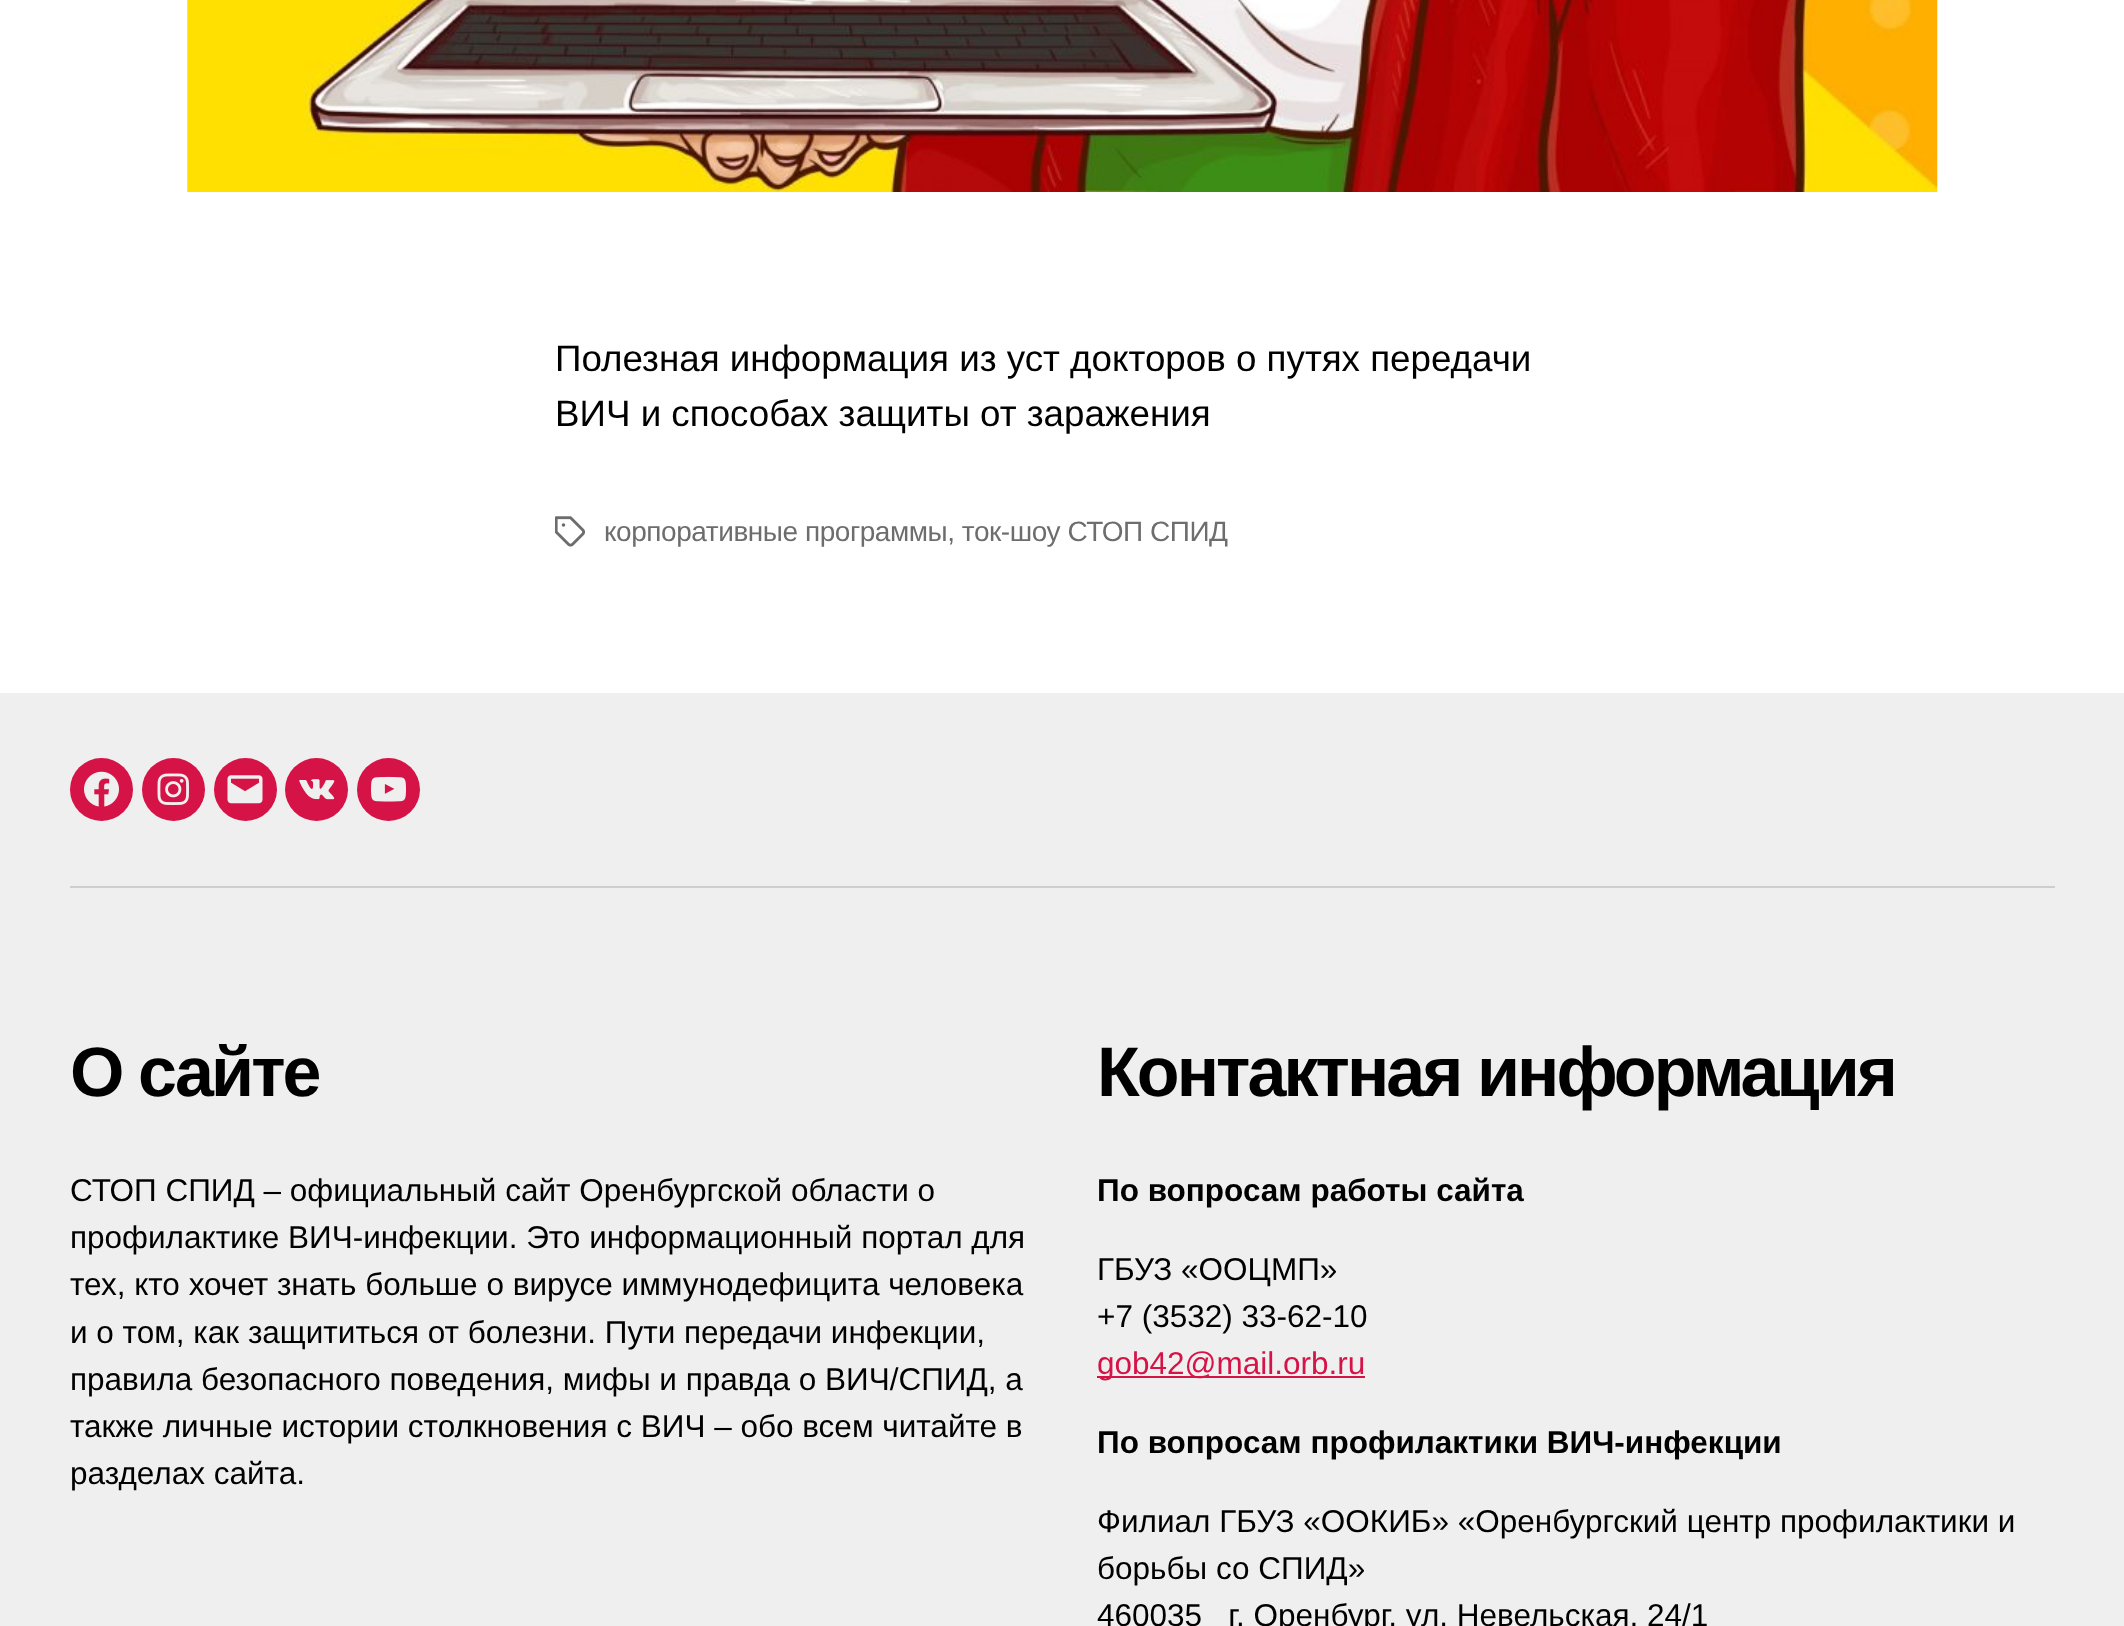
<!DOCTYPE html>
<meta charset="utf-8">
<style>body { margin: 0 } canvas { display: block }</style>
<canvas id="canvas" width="2124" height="1626"></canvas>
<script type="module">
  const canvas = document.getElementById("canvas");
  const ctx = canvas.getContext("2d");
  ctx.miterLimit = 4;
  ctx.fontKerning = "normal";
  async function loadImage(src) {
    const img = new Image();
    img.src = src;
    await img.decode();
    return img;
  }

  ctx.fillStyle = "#ffffff";
  ctx.fillRect(0, 0, 2124, 1626);
  ctx.drawImage(await loadImage("img1.png"), 187, 0, 1751, 192);
  ctx.font = "36.75px Liberation Sans";
  ctx.fillStyle = "#000000";
  ctx.fillText("Полезная информация из уст докторов о путях передачи", 555, 371);
  ctx.fillText("ВИЧ и способах защиты от заражения", 555, 426);
  ctx.drawImage(await loadImage("img2.png"), 555, 516, 30, 31);
  ctx.letterSpacing = "-0.45px";
  ctx.font = "28px Liberation Sans";
  ctx.fillStyle = "#6d6d6d";
  ctx.fillText("корпоративные программы, ток-шоу СТОП СПИД", 604, 541);
  ctx.fillStyle = "#efefef";
  ctx.fillRect(0, 693, 2124, 933);
  ctx.fillStyle = "#cecece";
  ctx.fillRect(70, 886, 1985, 2);
  ctx.fillStyle = "#d61347";
  ctx.beginPath();
  ctx.arc(101.5, 789.5, 31.5, 0, Math.PI * 2);
  ctx.fill();
  ctx.drawImage(await loadImage("img3.png"), 84, 771, 35, 36);
  ctx.beginPath();
  ctx.arc(173.5, 789.5, 31.5, 0, Math.PI * 2);
  ctx.fill();
  ctx.drawImage(await loadImage("img4.png"), 157, 773, 32, 32);
  ctx.beginPath();
  ctx.arc(245.5, 789.5, 31.5, 0, Math.PI * 2);
  ctx.fill();
  ctx.drawImage(await loadImage("img5.png"), 227, 775, 36, 29);
  ctx.beginPath();
  ctx.arc(316.5, 789.5, 31.5, 0, Math.PI * 2);
  ctx.fill();
  ctx.drawImage(await loadImage("img6.png"), 299, 779, 36, 21);
  ctx.beginPath();
  ctx.arc(388.5, 789.5, 31.5, 0, Math.PI * 2);
  ctx.fill();
  ctx.drawImage(await loadImage("img7.png"), 371, 776, 35, 26);
  ctx.letterSpacing = "-2.9px";
  ctx.font = "bold 70px Liberation Sans";
  ctx.fillStyle = "#000000";
  ctx.fillText("О сайте", 70, 1096);
  ctx.letterSpacing = "0px";
  ctx.font = "31.5px Liberation Sans";
  ctx.fillText("СТОП СПИД – официальный сайт Оренбургской области о", 70, 1201);
  ctx.fillText("профилактике ВИЧ-инфекции. Это информационный портал для", 70, 1248);
  ctx.fillText("тех, кто хочет знать больше о вирусе иммунодефицита человека", 70, 1295);
  ctx.fillText("и о том, как защититься от болезни. Пути передачи инфекции,", 70, 1343);
  ctx.fillText("правила безопасного поведения, мифы и правда о ВИЧ/СПИД, а", 70, 1390);
  ctx.fillText("также личные истории столкновения с ВИЧ – обо всем читайте в", 70, 1437);
  ctx.fillText("разделах сайта.", 70, 1484);
  ctx.letterSpacing = "-2.9px";
  ctx.font = "bold 70px Liberation Sans";
  ctx.fillText("Контактная информация", 1097, 1096);
  ctx.letterSpacing = "0px";
  ctx.font = "bold 31.5px Liberation Sans";
  ctx.fillText("По вопросам работы сайта", 1097, 1201);
  ctx.font = "31.5px Liberation Sans";
  ctx.fillText("ГБУЗ «ООЦМП»", 1097, 1280);
  ctx.fillText("+7 (3532) 33-62-10", 1097, 1327);
  ctx.fillStyle = "#d61347";
  ctx.fillRect(1097, 1376, 268, 2);
  ctx.fillText("gob42@mail.orb.ru", 1097, 1374);
  ctx.font = "bold 31.5px Liberation Sans";
  ctx.fillStyle = "#000000";
  ctx.fillText("По вопросам профилактики ВИЧ-инфекции", 1097, 1453);
  ctx.font = "31.5px Liberation Sans";
  ctx.fillText("Филиал ГБУЗ «ООКИБ» «Оренбургский центр профилактики и", 1097, 1532);
  ctx.fillText("борьбы со СПИД»", 1097, 1579);
  ctx.fillText("460035   г. Оренбург, ул. Невельская, 24/1", 1097, 1626);
</script>
